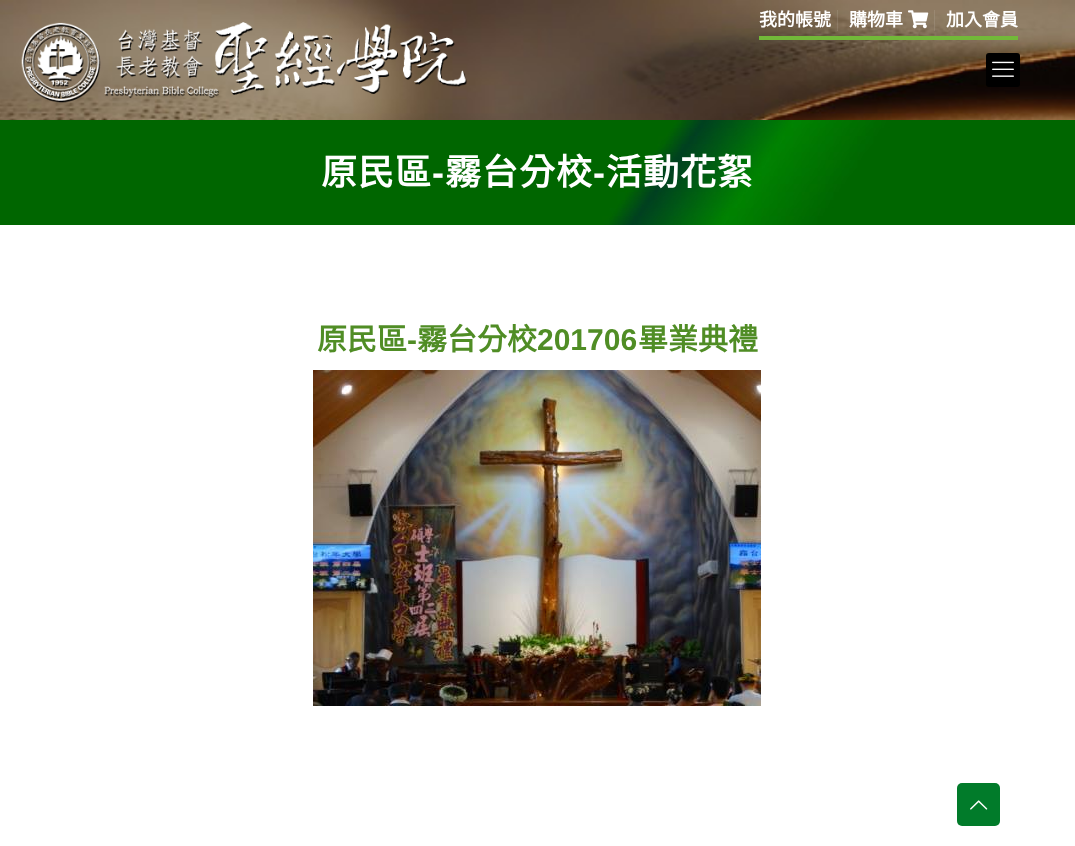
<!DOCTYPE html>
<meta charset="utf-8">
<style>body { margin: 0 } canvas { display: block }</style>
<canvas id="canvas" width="1075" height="846"></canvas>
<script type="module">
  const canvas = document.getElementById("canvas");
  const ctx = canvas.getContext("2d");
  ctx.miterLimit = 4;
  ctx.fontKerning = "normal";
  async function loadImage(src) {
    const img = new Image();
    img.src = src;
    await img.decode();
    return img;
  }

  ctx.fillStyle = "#ffffff";
  ctx.fillRect(0, 0, 1075, 846);
  ctx.drawImage(await loadImage("img1.png"), 0, 0, 1075, 120);
  ctx.fillStyle = "#72b939";
  ctx.fillRect(759, 36, 259, 4);
  ctx.fillStyle = "rgba(255, 255, 255, 0.1)";
  ctx.fillRect(837, 10, 1, 21);
  ctx.font = "bold 18px Noto Sans CJK TC";
  ctx.fillStyle = "#ffffff";
  ctx.fillText("我的帳號", 759, 26);
  ctx.fillStyle = "rgba(255, 255, 255, 0.1)";
  ctx.fillRect(934, 10, 1, 21);
  ctx.fillStyle = "#ffffff";
  ctx.fillText("購物車", 849, 26);
  ctx.drawImage(await loadImage("img2.png"), 908, 10, 21, 19);
  ctx.fillText("加入會員", 946, 26);
  ctx.drawImage(await loadImage("img3.png"), 21, 22, 446, 81);
  ctx.fillStyle = "#000000";
  ctx.beginPath();
  ctx.roundRect(986, 53, 34, 34, 3);
  ctx.fill();
  ctx.drawImage(await loadImage("img4.png"), 992, 61, 22, 16);
  ctx.drawImage(await loadImage("img5.png"), 0, 120, 1075, 105);
  ctx.letterSpacing = "1px";
  ctx.font = "bold 36px Noto Sans CJK TC";
  ctx.fillStyle = "#ffffff";
  ctx.fillText("原民區", 321, 185);
  ctx.font = "bold 36px Liberation Sans";
  ctx.fillText("-", 432, 185);
  ctx.font = "bold 36px Noto Sans CJK TC";
  ctx.fillText("霧台分校", 445, 185);
  ctx.font = "bold 36px Liberation Sans";
  ctx.fillText("-", 593, 185);
  ctx.font = "bold 36px Noto Sans CJK TC";
  ctx.fillText("活動花絮", 606, 185);
  ctx.letterSpacing = "0px";
  ctx.font = "bold 30px Noto Sans CJK TC";
  ctx.fillStyle = "#508d25";
  ctx.fillText("原民區", 317, 350);
  ctx.font = "bold 30px Liberation Sans";
  ctx.fillText("-", 407, 350);
  ctx.font = "bold 30px Noto Sans CJK TC";
  ctx.fillText("霧台分校", 417, 350);
  ctx.font = "bold 30px Liberation Sans";
  ctx.fillText("201706", 537, 350);
  ctx.font = "bold 30px Noto Sans CJK TC";
  ctx.fillText("畢業典禮", 638, 350);
  ctx.drawImage(await loadImage("img6.png"), 313, 370, 448, 336);
  ctx.fillStyle = "#017b2a";
  ctx.beginPath();
  ctx.roundRect(957, 783, 43, 43, 5);
  ctx.fill();
  ctx.drawImage(await loadImage("img7.png"), 970, 800, 18, 10);
</script>
